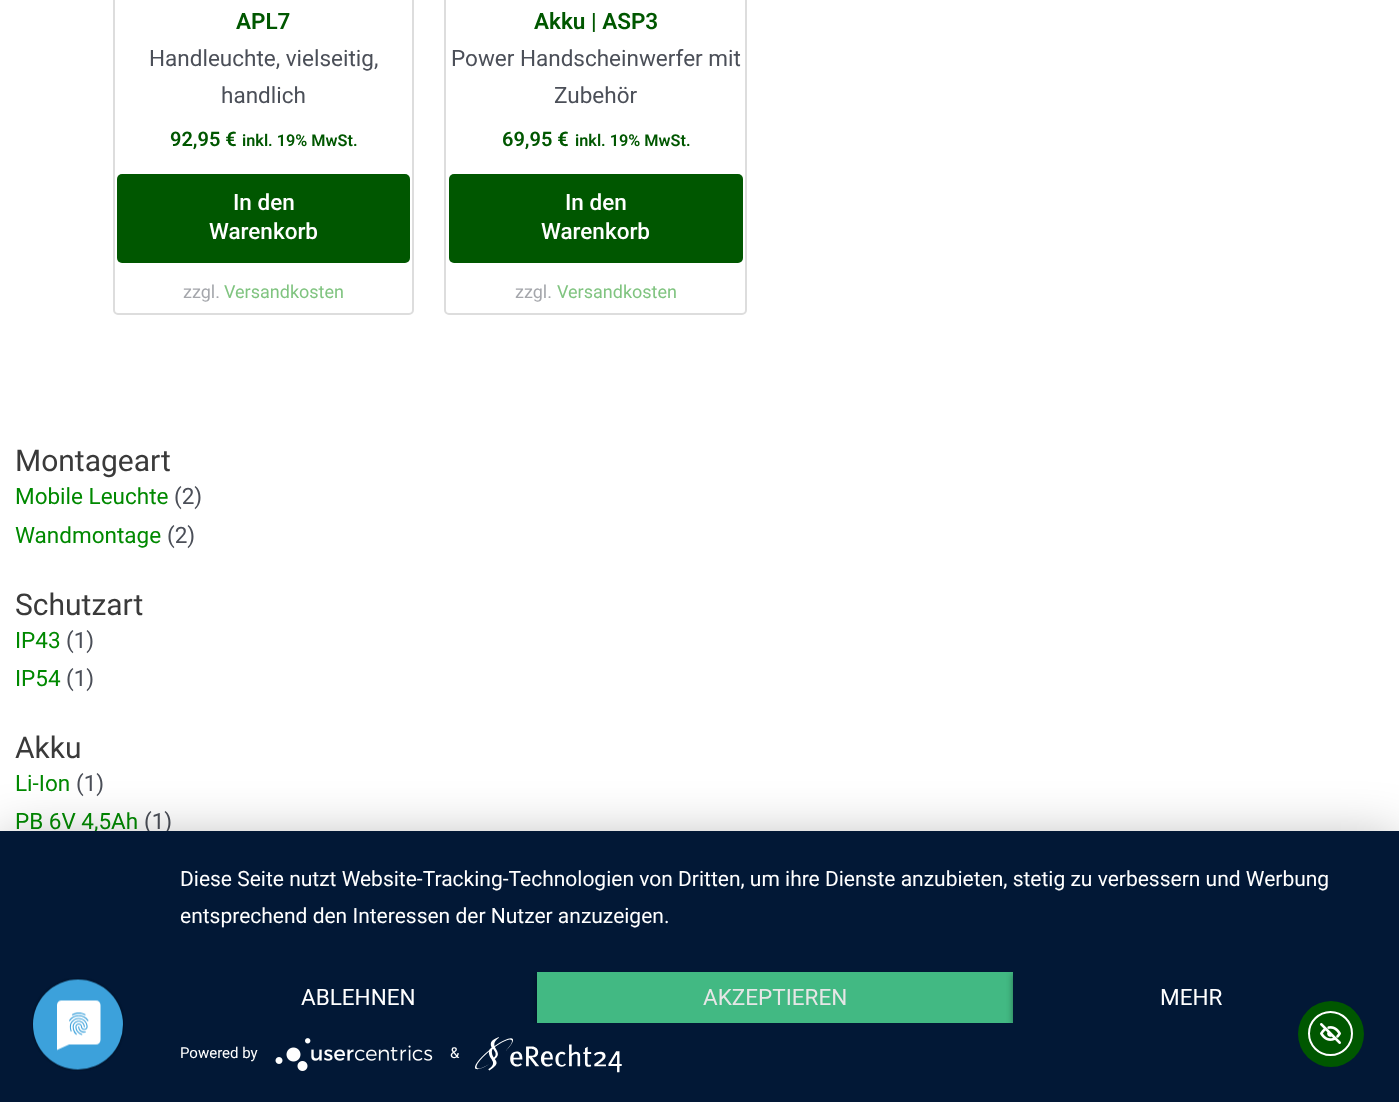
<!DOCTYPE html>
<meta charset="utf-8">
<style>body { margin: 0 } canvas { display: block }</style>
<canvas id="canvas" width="1399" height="1102"></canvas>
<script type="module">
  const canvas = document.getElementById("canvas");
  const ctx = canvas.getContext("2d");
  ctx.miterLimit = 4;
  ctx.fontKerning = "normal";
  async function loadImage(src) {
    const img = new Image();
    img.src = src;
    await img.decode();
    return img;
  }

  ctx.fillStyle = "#ffffff";
  ctx.fillRect(0, 0, 1399, 1102);
  ctx.beginPath();
  ctx.roundRect(114, -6, 299, 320, 4);
  ctx.strokeStyle = "#dddddd";
  ctx.lineWidth = 2;
  ctx.stroke();
  ctx.font = "600 22.5px Roboto";
  ctx.fillStyle = "#005700";
  ctx.fillText("APL7", 236, 29);
  ctx.font = "22.5px Roboto";
  ctx.fillStyle = "#4b4f58";
  ctx.fillText("Handleuchte, vielseitig,", 149, 66);
  ctx.fillText("handlich", 221, 103);
  ctx.font = "600 20px Roboto";
  ctx.fillStyle = "#005700";
  ctx.fillText("92,95 €", 170, 146);
  ctx.font = "600 16.25px Roboto";
  ctx.fillText("inkl. 19% MwSt.", 242, 146);
  ctx.beginPath();
  ctx.roundRect(117, 174, 293, 89, 5);
  ctx.fill();
  ctx.font = "500 22.5px Roboto";
  ctx.fillStyle = "#ffffff";
  ctx.fillText("In den", 233, 210);
  ctx.fillText("Warenkorb", 209, 239);
  ctx.font = "18px Roboto";
  ctx.fillStyle = "#a5a7ac";
  ctx.fillText("zzgl.", 183, 298);
  ctx.fillStyle = "#80c480";
  ctx.fillText("Versandkosten", 224, 298);
  ctx.beginPath();
  ctx.roundRect(445, -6, 301, 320, 4);
  ctx.stroke();
  ctx.font = "600 22.5px Roboto";
  ctx.fillStyle = "#005700";
  ctx.fillText("Akku | ASP3", 534, 29);
  ctx.font = "22.5px Roboto";
  ctx.fillStyle = "#4b4f58";
  ctx.fillText("Power Handscheinwerfer mit", 451, 66);
  ctx.fillText("Zubehör", 554, 103);
  ctx.font = "600 20px Roboto";
  ctx.fillStyle = "#005700";
  ctx.fillText("69,95 €", 502, 146);
  ctx.font = "600 16.25px Roboto";
  ctx.fillText("inkl. 19% MwSt.", 575, 146);
  ctx.beginPath();
  ctx.roundRect(449, 174, 294, 89, 5);
  ctx.fill();
  ctx.font = "500 22.5px Roboto";
  ctx.fillStyle = "#ffffff";
  ctx.fillText("In den", 565, 210);
  ctx.fillText("Warenkorb", 541, 239);
  ctx.font = "18px Roboto";
  ctx.fillStyle = "#a5a7ac";
  ctx.fillText("zzgl.", 515, 298);
  ctx.fillStyle = "#80c480";
  ctx.fillText("Versandkosten", 557, 298);
  ctx.font = "30px Roboto";
  ctx.fillStyle = "#3a3a3a";
  ctx.fillText("Montageart", 15, 471);
  ctx.font = "22.5px Roboto";
  ctx.fillStyle = "#008900";
  ctx.fillText("Mobile Leuchte", 15, 504);
  ctx.fillStyle = "#4b4f58";
  ctx.fillText("(2)", 174, 504);
  ctx.fillStyle = "#008900";
  ctx.fillText("Wandmontage", 15, 543);
  ctx.fillStyle = "#4b4f58";
  ctx.fillText("(2)", 167, 543);
  ctx.font = "30px Roboto";
  ctx.fillStyle = "#3a3a3a";
  ctx.fillText("Schutzart", 15, 615);
  ctx.font = "22.5px Roboto";
  ctx.fillStyle = "#008900";
  ctx.fillText("IP43", 15, 648);
  ctx.fillStyle = "#4b4f58";
  ctx.fillText("(1)", 66, 648);
  ctx.fillStyle = "#008900";
  ctx.fillText("IP54", 15, 686);
  ctx.fillStyle = "#4b4f58";
  ctx.fillText("(1)", 66, 686);
  ctx.font = "30px Roboto";
  ctx.fillStyle = "#3a3a3a";
  ctx.fillText("Akku", 15, 758);
  ctx.font = "22.5px Roboto";
  ctx.fillStyle = "#008900";
  ctx.fillText("Li-Ion", 15, 791);
  ctx.fillStyle = "#4b4f58";
  ctx.fillText("(1)", 76, 791);
  ctx.fillStyle = "#008900";
  ctx.fillText("PB 6V 4,5Ah", 15, 829);
  ctx.fillStyle = "#4b4f58";
  ctx.fillText("(1)", 144, 829);
  ctx.fillStyle = "rgba(0, 0, 0, 0.3)";
  ctx.filter = "blur(27px)";
  ctx.beginPath();
  ctx.rect(0, 840, 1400, 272);
  ctx.fill();
  ctx.filter = "none";
  ctx.fillStyle = "#021836";
  ctx.fillRect(0, 831, 1399, 271);
  ctx.drawImage(await loadImage("img1.png"), 32, 978, 92, 93);
  ctx.font = "21px Roboto";
  ctx.fillStyle = "#ffffff";
  ctx.fillText("Diese Seite nutzt Website-Tracking-Technologien von Dritten, um ihre Dienste anzubieten, stetig zu verbessern und Werbung", 180, 886);
  ctx.fillText("entsprechend den Interessen der Nutzer anzuzeigen.", 180, 923);
  ctx.font = "22.5px Roboto";
  ctx.fillText("ABLEHNEN", 301, 1005);
  ctx.save();
  ctx.beginPath();
  ctx.rect(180, 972, 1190, 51);
  ctx.clip();
  ctx.fillStyle = "rgba(0, 0, 0, 0.4)";
  ctx.filter = "blur(3px)";
  ctx.beginPath();
  ctx.rect(537, 974, 476, 51);
  ctx.fill();
  ctx.filter = "none";
  ctx.restore();
  ctx.fillStyle = "#42b983";
  ctx.fillRect(537, 972, 476, 51);
  ctx.fillStyle = "#e6e6e6";
  ctx.fillText("AKZEPTIEREN", 703, 1005);
  ctx.save();
  ctx.beginPath();
  ctx.rect(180, 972, 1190, 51);
  ctx.clip();
  ctx.fillStyle = "rgba(0, 0, 0, 0.4)";
  ctx.filter = "blur(3px)";
  ctx.beginPath();
  ctx.rect(1013, 974, 357, 51);
  ctx.fill();
  ctx.filter = "none";
  ctx.restore();
  ctx.fillStyle = "#021836";
  ctx.fillRect(1013, 972, 357, 51);
  ctx.fillStyle = "#ffffff";
  ctx.fillText("MEHR", 1160, 1005);
  ctx.font = "15px Roboto";
  ctx.fillText("Powered by", 180, 1058);
  ctx.drawImage(await loadImage("img2.png"), 275, 1038, 158, 33);
  ctx.fillText("&", 450, 1058);
  ctx.drawImage(await loadImage("img3.png"), 475, 1037, 147, 36);
  ctx.fillStyle = "#005700";
  ctx.beginPath();
  ctx.arc(1331, 1034, 33, 0, Math.PI * 2);
  ctx.fill();
  ctx.beginPath();
  ctx.arc(1330.5, 1033.5, 21.5, 0, Math.PI * 2);
  ctx.strokeStyle = "#ffffff";
  ctx.stroke();
  ctx.drawImage(await loadImage("img4.png"), 1320, 1023, 21, 21);
</script>
